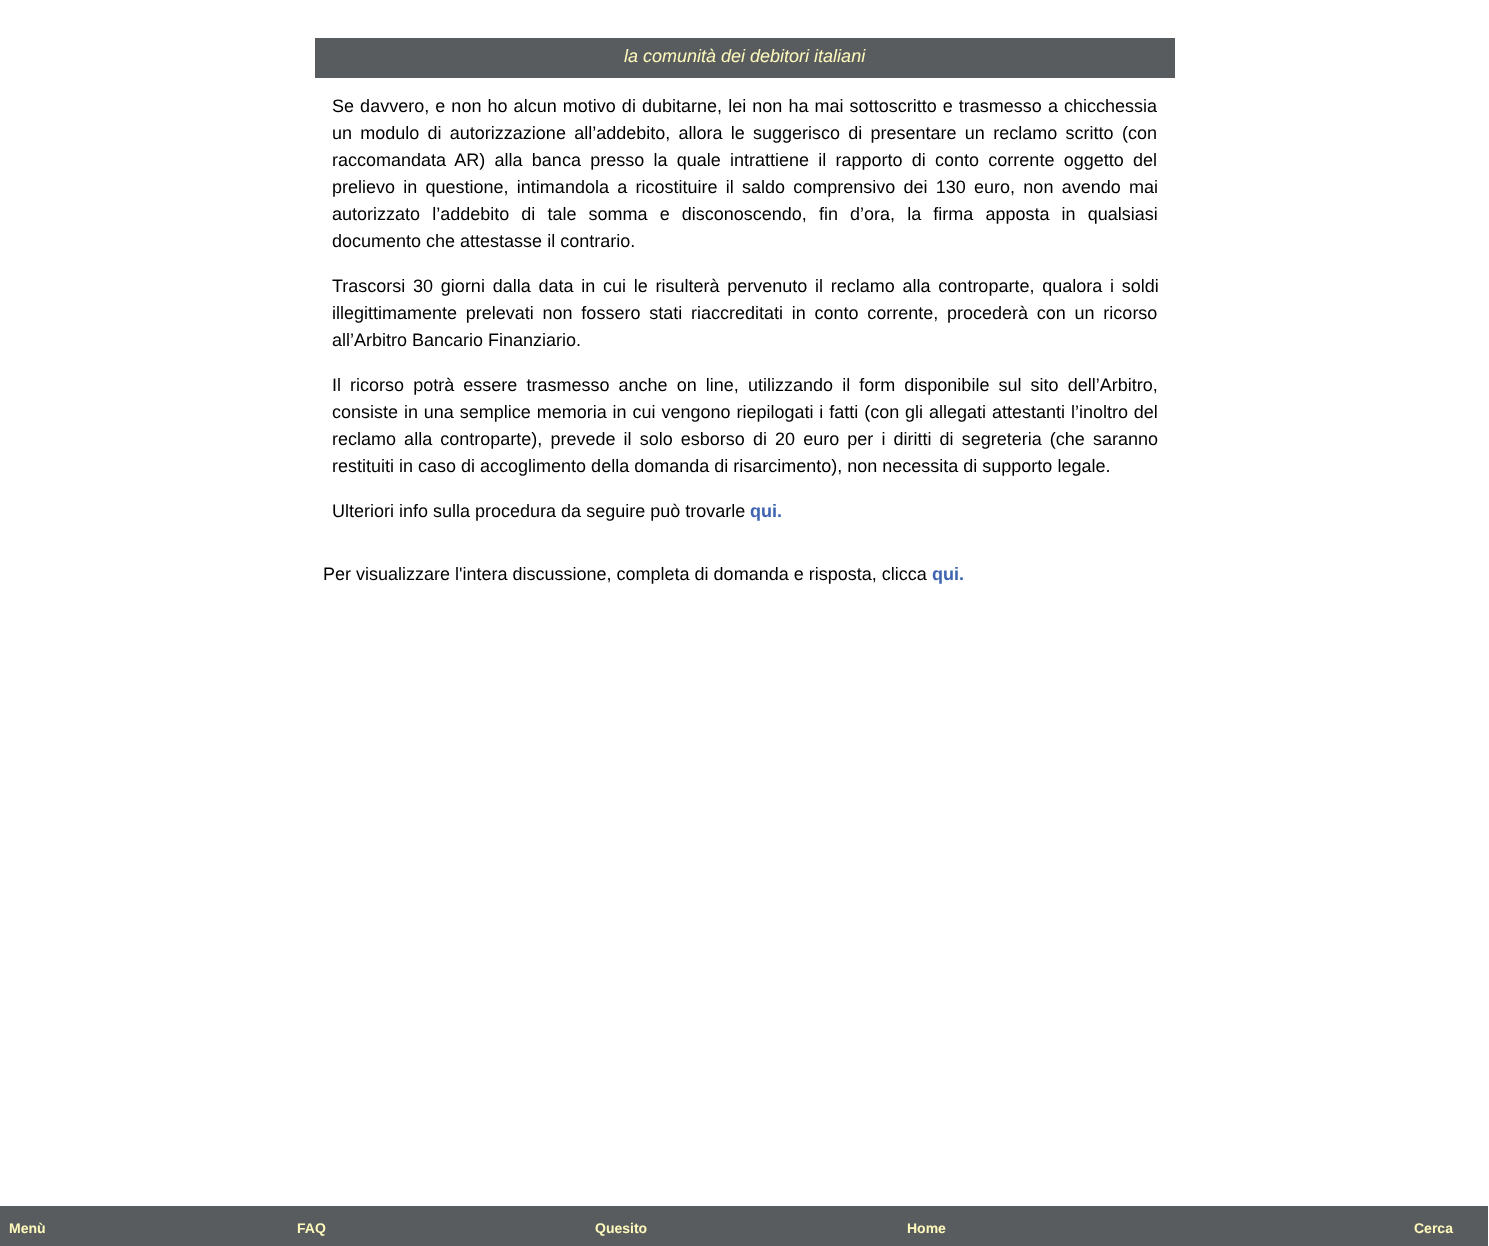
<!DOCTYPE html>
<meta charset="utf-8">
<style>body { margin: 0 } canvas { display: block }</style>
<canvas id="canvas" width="1489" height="1246"></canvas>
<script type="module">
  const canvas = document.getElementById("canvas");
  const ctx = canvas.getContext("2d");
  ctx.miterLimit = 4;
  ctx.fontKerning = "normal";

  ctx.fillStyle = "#ffffff";
  ctx.fillRect(0, 0, 1489, 1246);
  ctx.fillStyle = "#595c5e";
  ctx.fillRect(315, 38, 860, 40);
  ctx.font = "italic 18px Liberation Sans";
  ctx.fillStyle = "#fefabc";
  ctx.fillText("la comunità dei debitori italiani", 624, 62);
  ctx.fillStyle = "#595c5e";
  ctx.fillRect(0, 1206, 1488, 40);
  ctx.font = "bold 14px Liberation Sans";
  ctx.fillStyle = "#fefabc";
  ctx.fillText("Menù", 9, 1233);
  ctx.fillText("FAQ", 297, 1233);
  ctx.fillText("Quesito", 595, 1233);
  ctx.fillText("Home", 907, 1233);
  ctx.fillText("Cerca", 1414, 1233);
  ctx.wordSpacing = "1.1px";
  ctx.font = "18px Liberation Sans";
  ctx.fillStyle = "#000000";
  ctx.fillText("Se davvero, e non ho alcun motivo di dubitarne, lei non ha mai sottoscritto e trasmesso a chicchessia", 332, 112);
  ctx.wordSpacing = "3.25px";
  ctx.fillText("un modulo di autorizzazione all’addebito, allora le suggerisco di presentare un reclamo scritto", 332, 139);
  ctx.wordSpacing = "0px";
  ctx.fillText("(con", 1122, 139);
  ctx.wordSpacing = "4.25px";
  ctx.fillText("raccomandata AR) alla banca presso la quale intrattiene il rapporto di conto corrente oggetto del", 332, 166);
  ctx.wordSpacing = "3.25px";
  ctx.fillText("prelievo in questione, intimandola a ricostituire il saldo comprensivo dei 130 euro, non avendo mai", 332, 193);
  ctx.wordSpacing = "7.1px";
  ctx.fillText("autorizzato l’addebito di tale somma e disconoscendo, fin d’ora, la firma apposta in qualsiasi", 332, 220);
  ctx.wordSpacing = "0px";
  ctx.fillText("documento che attestasse il contrario.", 332, 247);
  ctx.wordSpacing = "2.75px";
  ctx.fillText("Trascorsi 30 giorni dalla data in cui le risulterà pervenuto il reclamo alla controparte, qualora i soldi", 332, 292);
  ctx.wordSpacing = "3.75px";
  ctx.fillText("illegittimamente prelevati non fossero stati riaccreditati in conto corrente, procederà con un ricorso", 332, 319);
  ctx.wordSpacing = "0px";
  ctx.fillText("all’Arbitro Bancario Finanziario.", 332, 346);
  ctx.wordSpacing = "4.1px";
  ctx.fillText("Il ricorso potrà essere trasmesso anche on line, utilizzando il form disponibile sul sito dell’Arbitro,", 332, 391);
  ctx.wordSpacing = "0.9px";
  ctx.fillText("consiste in una semplice memoria in cui vengono riepilogati i fatti (con gli allegati attestanti l’inoltro del", 332, 418);
  ctx.wordSpacing = "3.1px";
  ctx.fillText("reclamo alla controparte), prevede il solo esborso di 20 euro per i diritti di segreteria (che saranno", 332, 445);
  ctx.wordSpacing = "0px";
  ctx.fillText("restituiti in caso di accoglimento della domanda di risarcimento), non necessita di supporto legale.", 332, 472);
  ctx.fillText("Ulteriori info sulla procedura da seguire può trovarle", 332, 517);
  ctx.font = "bold 18px Liberation Sans";
  ctx.fillStyle = "#3e63b1";
  ctx.fillText("qui.", 750, 517);
  ctx.font = "18px Liberation Sans";
  ctx.fillStyle = "#000000";
  ctx.fillText("Per visualizzare l'intera discussione, completa di domanda e risposta, clicca", 323, 580);
  ctx.font = "bold 18px Liberation Sans";
  ctx.fillStyle = "#3e63b1";
  ctx.fillText("qui.", 932, 580);
</script>
